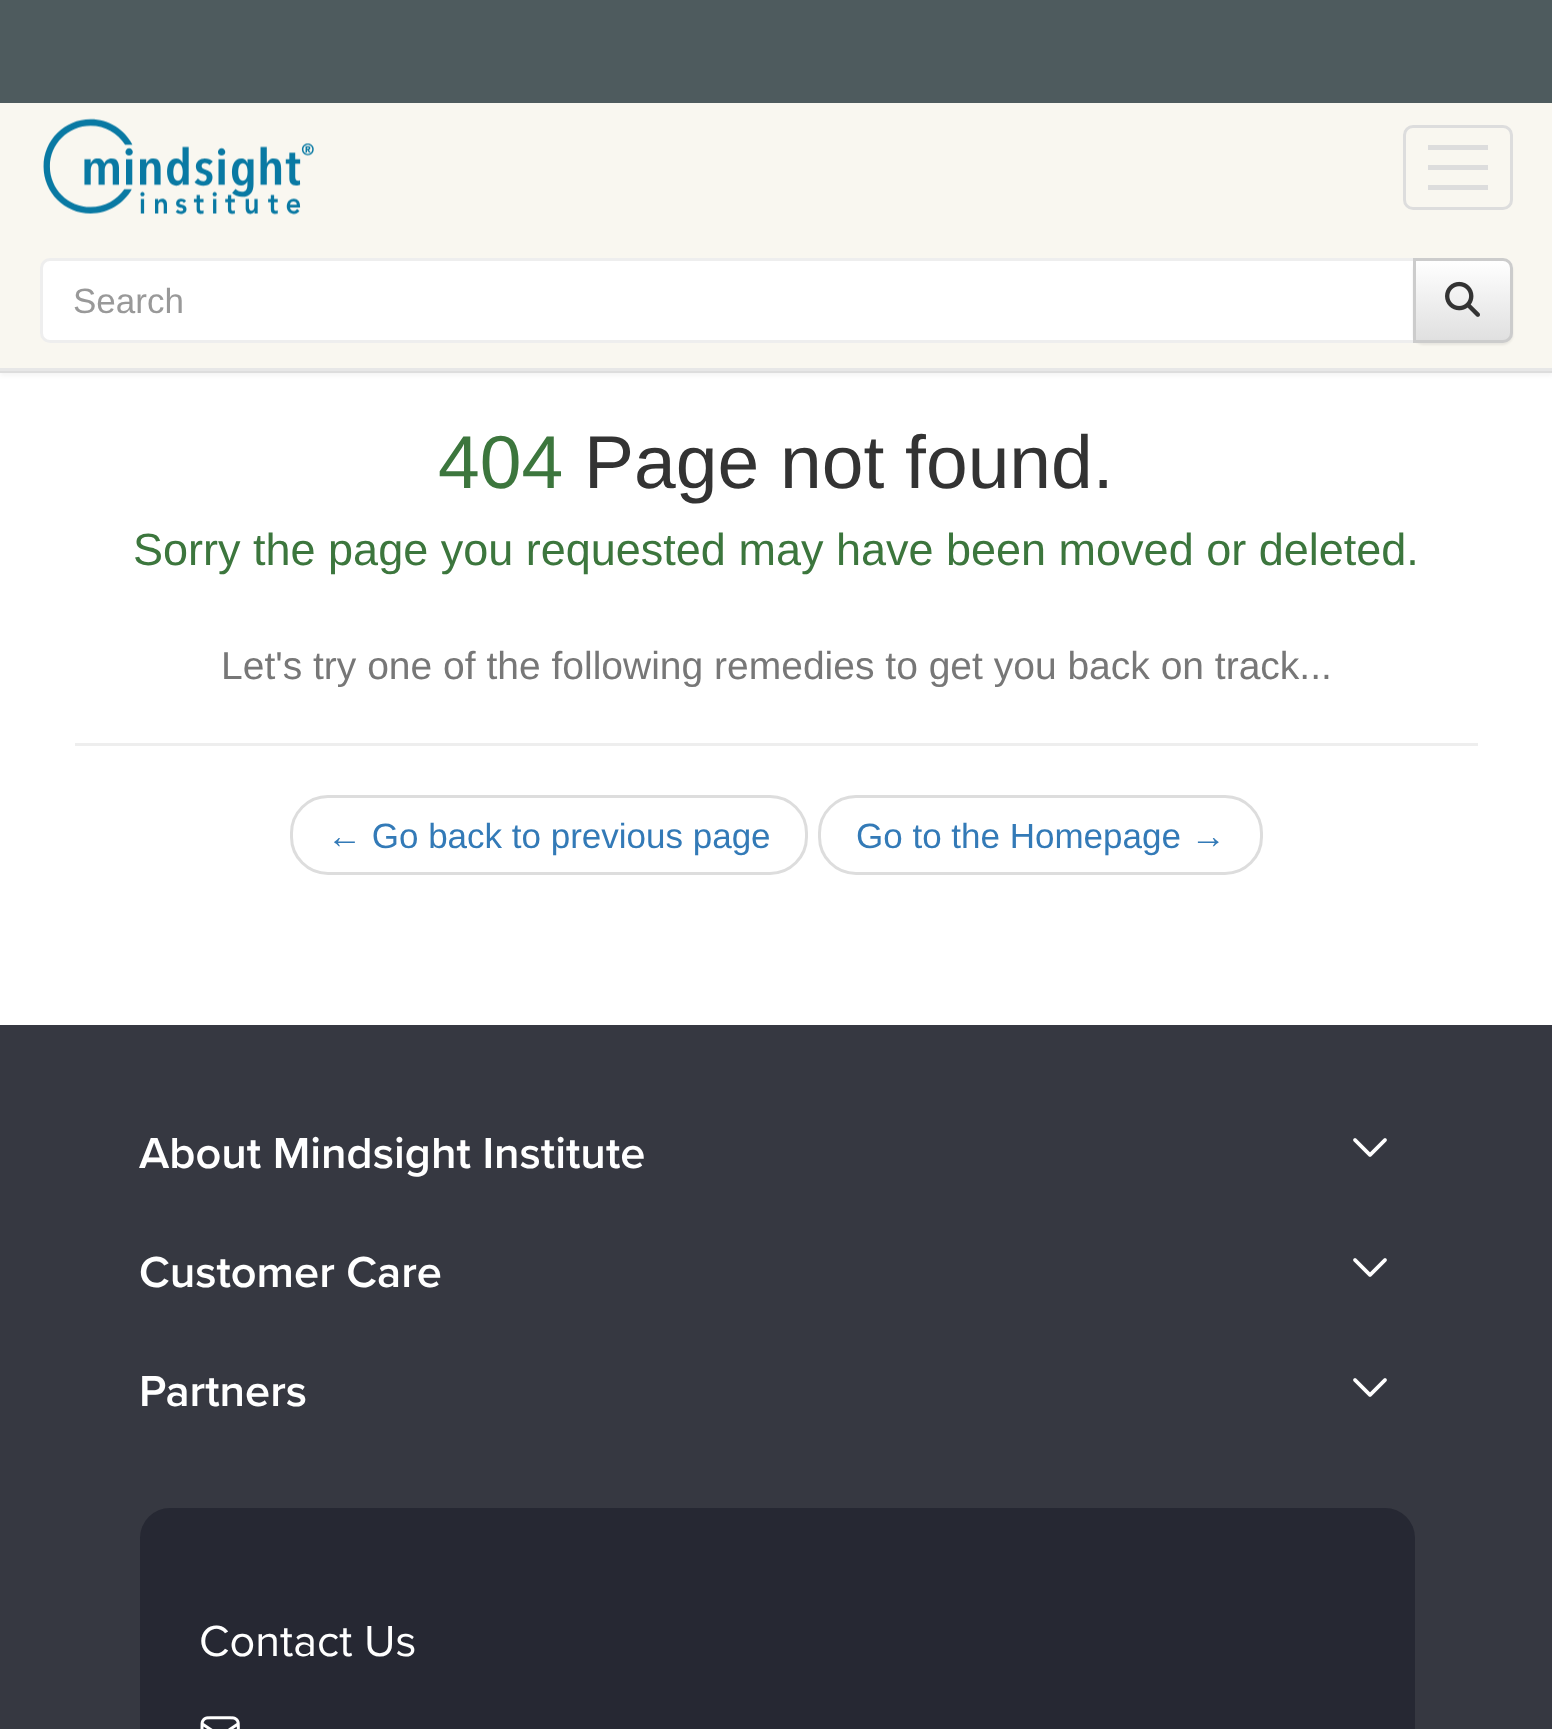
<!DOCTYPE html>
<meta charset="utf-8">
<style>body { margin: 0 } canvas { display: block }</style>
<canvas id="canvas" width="1552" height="1729"></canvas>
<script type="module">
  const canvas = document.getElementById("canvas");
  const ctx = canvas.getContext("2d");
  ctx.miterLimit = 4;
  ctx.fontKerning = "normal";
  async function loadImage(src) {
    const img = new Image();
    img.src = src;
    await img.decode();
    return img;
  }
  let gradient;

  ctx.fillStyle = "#ffffff";
  ctx.fillRect(0, 0, 1552, 1729);
  ctx.fillStyle = "rgba(0, 0, 0, 0.05)";
  ctx.filter = "blur(2.5px)";
  ctx.beginPath();
  ctx.rect(0, 3, 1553, 372);
  ctx.fill();
  ctx.filter = "none";
  ctx.fillStyle = "#dddddd";
  ctx.fillRect(0, 371, 1552, 2);
  ctx.fillStyle = "#4e5b5e";
  ctx.fillRect(0, 0, 1552, 103);
  ctx.fillStyle = "#f9f7f0";
  ctx.fillRect(0, 103, 1552, 265);
  ctx.drawImage(await loadImage("img1.png"), 43, 118, 271, 97);
  ctx.beginPath();
  ctx.roundRect(1404.5, 126.5, 107, 82, 8.5);
  ctx.strokeStyle = "#dddddd";
  ctx.lineWidth = 3;
  ctx.stroke();
  ctx.fillStyle = "#dddddd";
  ctx.fillRect(1428, 145, 60, 5);
  ctx.fillRect(1428, 165, 60, 5);
  ctx.fillRect(1428, 185, 60, 5);
  ctx.fillStyle = "#e7e7e7";
  ctx.fillRect(0, 368, 1552, 3);
  ctx.fillStyle = "#ffffff";
  ctx.beginPath();
  ctx.roundRect(41.5, 259.5, 1445, 82, 8.5);
  ctx.fill();
  ctx.strokeStyle = "#eeeeee";
  ctx.stroke();
  ctx.font = "35px Liberation Sans";
  ctx.fillStyle = "#999999";
  ctx.fillText("Search", 73, 313);
  ctx.fillStyle = "rgba(0, 0, 0, 0.07)";
  ctx.filter = "blur(1px)";
  ctx.beginPath();
  ctx.roundRect(1413, 260, 100, 85, 10);
  ctx.fill();
  ctx.filter = "none";
  ctx.save();
  ctx.beginPath();
  ctx.roundRect(1413, 258, 100, 85, [0, 10, 10, 0]);
  ctx.clip();
  gradient = ctx.createLinearGradient(1463, 260, 1463, 340);
  gradient.addColorStop(0, "#ffffff");
  gradient.addColorStop(1, "#e0e0e0");
  ctx.fillStyle = gradient;
  ctx.fillRect(1416, 260, 97, 80);
  ctx.restore();
  ctx.beginPath();
  ctx.roundRect(1414.5, 259.5, 97, 82, [0, 8.5, 8.5, 0]);
  ctx.strokeStyle = "#cccccc";
  ctx.stroke();
  ctx.drawImage(await loadImage("img2.png"), 1445, 281, 35, 36);
  ctx.font = "75px Liberation Sans";
  ctx.fillStyle = "#3c763d";
  ctx.fillText("404", 438, 488);
  ctx.fillStyle = "#333333";
  ctx.fillText("Page not found.", 584, 488);
  ctx.font = "45px Liberation Sans";
  ctx.fillStyle = "#3c763d";
  ctx.fillText("Sorry the page you requested may have been moved or deleted.", 133, 565);
  ctx.font = "39px Liberation Sans";
  ctx.fillStyle = "#777777";
  ctx.fillText("Let's try one of the following remedies to get you back on track...", 221, 679);
  ctx.fillStyle = "#eeeeee";
  ctx.fillRect(75, 743, 1403, 3);
  ctx.beginPath();
  ctx.roundRect(291.5, 796.5, 515, 77, 36.5);
  ctx.strokeStyle = "#dddddd";
  ctx.stroke();
  ctx.font = "35px Liberation Sans";
  ctx.fillStyle = "#337ab7";
  ctx.fillText("← Go back to previous page", 327, 848);
  ctx.beginPath();
  ctx.roundRect(819.5, 796.5, 442, 77, 36.5);
  ctx.stroke();
  ctx.fillText("Go to the Homepage →", 856, 848);
  ctx.fillStyle = "#363841";
  ctx.fillRect(0, 1025, 1552, 704);
  ctx.font = "600 45px Proxima Nova";
  ctx.fillStyle = "#ffffff";
  ctx.fillText("About Mindsight Institute", 139, 1168);
  ctx.drawImage(await loadImage("img3.png"), 1353, 1138, 34, 19);
  ctx.fillText("Customer Care", 139, 1287);
  ctx.drawImage(await loadImage("img3.png"), 1353, 1258, 34, 19);
  ctx.fillText("Partners", 139, 1406);
  ctx.drawImage(await loadImage("img3.png"), 1353, 1378, 34, 19);
  ctx.fillStyle = "#262833";
  ctx.beginPath();
  ctx.roundRect(140, 1508, 1275, 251, 30);
  ctx.fill();
  ctx.font = "45px Proxima Nova";
  ctx.fillStyle = "#ffffff";
  ctx.fillText("Contact Us", 199, 1656);
  ctx.drawImage(await loadImage("img4.png"), 200, 1716, 40, 13);
</script>
